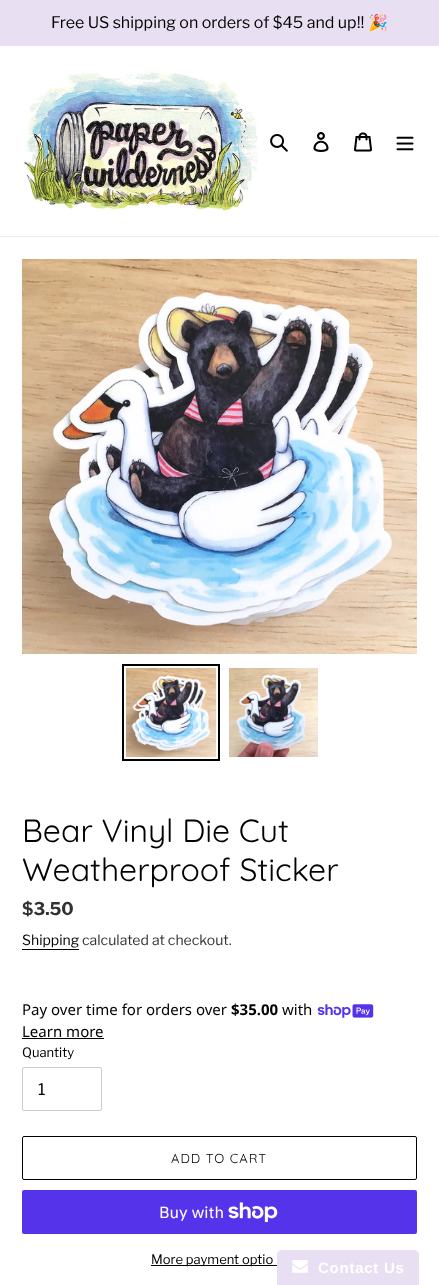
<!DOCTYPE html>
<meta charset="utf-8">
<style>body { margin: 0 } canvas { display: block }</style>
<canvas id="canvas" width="439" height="1285"></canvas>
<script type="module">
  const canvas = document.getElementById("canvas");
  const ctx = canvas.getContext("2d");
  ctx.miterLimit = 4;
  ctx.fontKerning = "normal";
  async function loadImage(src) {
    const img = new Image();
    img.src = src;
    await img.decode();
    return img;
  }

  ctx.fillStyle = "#ffffff";
  ctx.fillRect(0, 0, 439, 1285);
  ctx.fillStyle = "#e8dff2";
  ctx.fillRect(0, 0, 439, 46);
  ctx.font = "16px Libre Franklin";
  ctx.fillStyle = "#000000";
  ctx.fillText("Free US shipping on orders of $45 and up!!", 51, 28);
  ctx.font = "16px Noto Color Emoji";
  ctx.fillText("🎉", 368, 28);
  ctx.fillStyle = "#ebebeb";
  ctx.fillRect(0, 236, 439, 1);
  ctx.drawImage(await loadImage("img1.png"), 22, 72, 236, 139);
  ctx.drawImage(await loadImage("img2.png"), 270, 134, 18, 18);
  ctx.drawImage(await loadImage("img3.png"), 313, 132, 16, 20);
  ctx.drawImage(await loadImage("img4.png"), 354, 132, 18, 20);
  ctx.drawImage(await loadImage("img5.png"), 396, 136, 18, 15);
  ctx.drawImage(await loadImage("img6.png"), 22, 259, 395, 395);
  ctx.strokeStyle = "#000000";
  ctx.lineWidth = 2;
  ctx.strokeRect(123, 665, 96, 95);
  ctx.drawImage(await loadImage("img7.png"), 126, 668, 90, 89);
  ctx.drawImage(await loadImage("img8.png"), 229, 668, 89, 89);
  ctx.font = "32px Quicksand";
  ctx.fillStyle = "#000000";
  ctx.fillText("Bear Vinyl Die Cut", 22, 842);
  ctx.fillText("Weatherproof Sticker", 22, 881);
  ctx.font = "bold 17.5px Libre Franklin";
  ctx.fillStyle = "#333232";
  ctx.fillText("$3.50", 22, 915);
  ctx.font = "14px Libre Franklin";
  ctx.fillStyle = "#000000";
  ctx.fillText("Shipping", 22, 945);
  ctx.fillRect(22, 949, 57, 1);
  ctx.fillStyle = "#333232";
  ctx.fillText("calculated at checkout.", 82, 945);
  ctx.font = "15px Noto Sans";
  ctx.fillStyle = "#000000";
  ctx.fillText("Pay over time for orders over", 22, 1015);
  ctx.font = "bold 15px Noto Sans";
  ctx.fillText("$35.00", 231, 1015);
  ctx.font = "15px Noto Sans";
  ctx.fillText("with", 282, 1015);
  ctx.drawImage(await loadImage("img9.png"), 317, 1004, 57, 14);
  ctx.fillText("Learn more", 22, 1037);
  ctx.fillRect(22, 1038, 82, 1);
  ctx.font = "13px Libre Franklin";
  ctx.fillText("Quantity", 22, 1057);
  ctx.beginPath();
  ctx.roundRect(22.5, 1067.5, 79, 43, 1.5);
  ctx.strokeStyle = "#cccccc";
  ctx.lineWidth = 1;
  ctx.stroke();
  ctx.font = "16px Libre Franklin";
  ctx.fillText("1", 38, 1095);
  ctx.beginPath();
  ctx.roundRect(22.5, 1136.5, 394, 43, 1.5);
  ctx.strokeStyle = "#000000";
  ctx.stroke();
  ctx.letterSpacing = "1px";
  ctx.font = "13px Quicksand";
  ctx.fillText("ADD TO CART", 171, 1163);
  ctx.fillStyle = "#5433eb";
  ctx.beginPath();
  ctx.roundRect(22, 1190, 395, 44, 2);
  ctx.fill();
  ctx.letterSpacing = "0px";
  ctx.font = "16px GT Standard";
  ctx.fillStyle = "#ffffff";
  ctx.fillText("Buy with", 159, 1218);
  ctx.drawImage(await loadImage("img10.png"), 228, 1202, 50, 20);
  ctx.fillStyle = "#000000";
  ctx.fillRect(151, 1265, 126, 1);
  ctx.font = "13px Libre Franklin";
  ctx.fillText("More payment optio", 151, 1264);
  ctx.fillStyle = "#e8dff2";
  ctx.beginPath();
  ctx.roundRect(277, 1250, 142, 35, [5, 5, 0, 0]);
  ctx.fill();
  ctx.drawImage(await loadImage("img11.png"), 292, 1260, 17, 13);
  ctx.letterSpacing = "0.75px";
  ctx.font = "bold 15px Liberation Sans";
  ctx.fillStyle = "#ffffff";
  ctx.fillText("Contact Us", 318, 1273);
</script>
